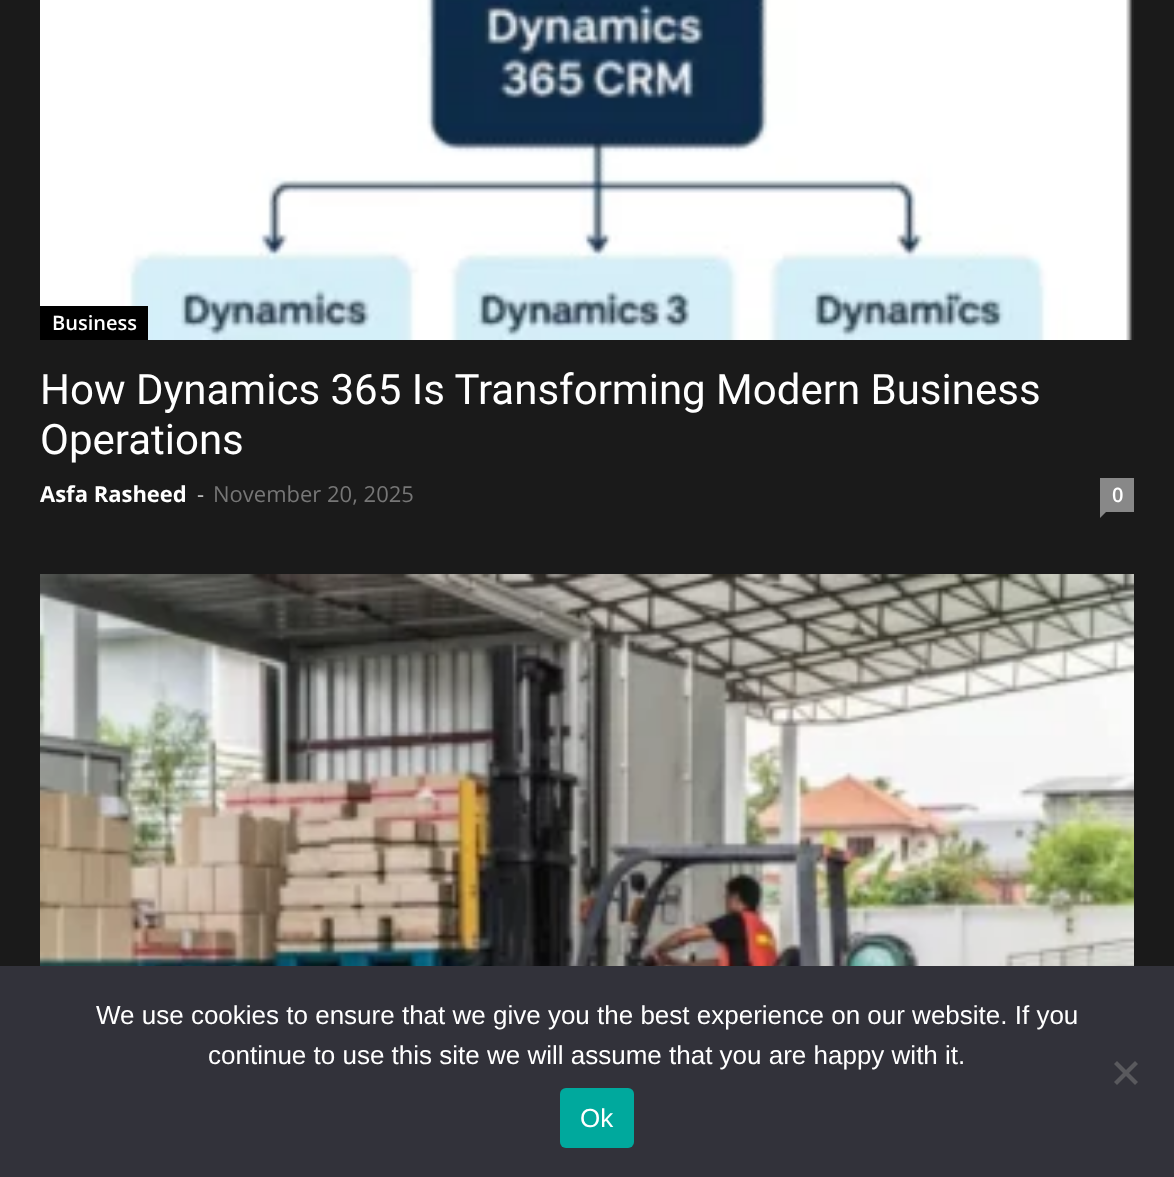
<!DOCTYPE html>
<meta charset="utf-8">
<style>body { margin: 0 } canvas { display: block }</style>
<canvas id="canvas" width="1174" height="1177"></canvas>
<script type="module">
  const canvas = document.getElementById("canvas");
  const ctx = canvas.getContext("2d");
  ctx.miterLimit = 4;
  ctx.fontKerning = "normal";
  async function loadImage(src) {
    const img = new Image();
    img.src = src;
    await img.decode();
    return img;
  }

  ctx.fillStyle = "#1a1a1a";
  ctx.fillRect(0, 0, 1174, 1177);
  ctx.drawImage(await loadImage("img1.png"), 40, 0, 1094, 340);
  ctx.fillStyle = "#000000";
  ctx.fillRect(40, 306, 108, 34);
  ctx.font = "600 20px Open Sans";
  ctx.fillStyle = "#ffffff";
  ctx.fillText("Business", 52, 330);
  ctx.font = "42px Roboto";
  ctx.fillText("How Dynamics 365 Is Transforming Modern Business", 40, 404);
  ctx.fillText("Operations", 40, 454);
  ctx.font = "bold 22px Open Sans";
  ctx.fillText("Asfa Rasheed", 40, 502);
  ctx.font = "22px Open Sans";
  ctx.fillStyle = "#cccccc";
  ctx.fillText("-", 197, 502);
  ctx.fillStyle = "#767676";
  ctx.fillText("November 20, 2025", 213, 502);
  ctx.fillStyle = "#888888";
  ctx.fillRect(1100, 478, 34, 34);
  ctx.font = "600 20px Open Sans";
  ctx.fillStyle = "#ffffff";
  ctx.fillText("0", 1112, 502);
  ctx.fillStyle = "#888888";
  ctx.beginPath();
  ctx.moveTo(1100, 512);
  ctx.lineTo(1106, 512);
  ctx.lineTo(1100, 518);
  ctx.closePath();
  ctx.fill();
  ctx.drawImage(await loadImage("img2.png"), 40, 574, 1094, 392);
  ctx.fillStyle = "#32323a";
  ctx.fillRect(0, 966, 1174, 211);
  ctx.font = "26px Liberation Sans";
  ctx.fillStyle = "#ffffff";
  ctx.fillText("We use cookies to ensure that we give you the best experience on our website. If you", 96, 1024);
  ctx.fillText("continue to use this site we will assume that you are happy with it.", 208, 1064);
  ctx.fillStyle = "#59595d";
  ctx.beginPath();
  ctx.moveTo(1135, 1061);
  ctx.lineTo(1138, 1064);
  ctx.lineTo(1117, 1085);
  ctx.lineTo(1114, 1082);
  ctx.closePath();
  ctx.fill();
  ctx.beginPath();
  ctx.moveTo(1114, 1064);
  ctx.lineTo(1117, 1061);
  ctx.lineTo(1138, 1082);
  ctx.lineTo(1135, 1085);
  ctx.closePath();
  ctx.fill();
  ctx.fillStyle = "#00a99d";
  ctx.beginPath();
  ctx.roundRect(560, 1088, 74, 60, 6);
  ctx.fill();
  ctx.fillStyle = "#ffffff";
  ctx.fillText("Ok", 580, 1127);
</script>
